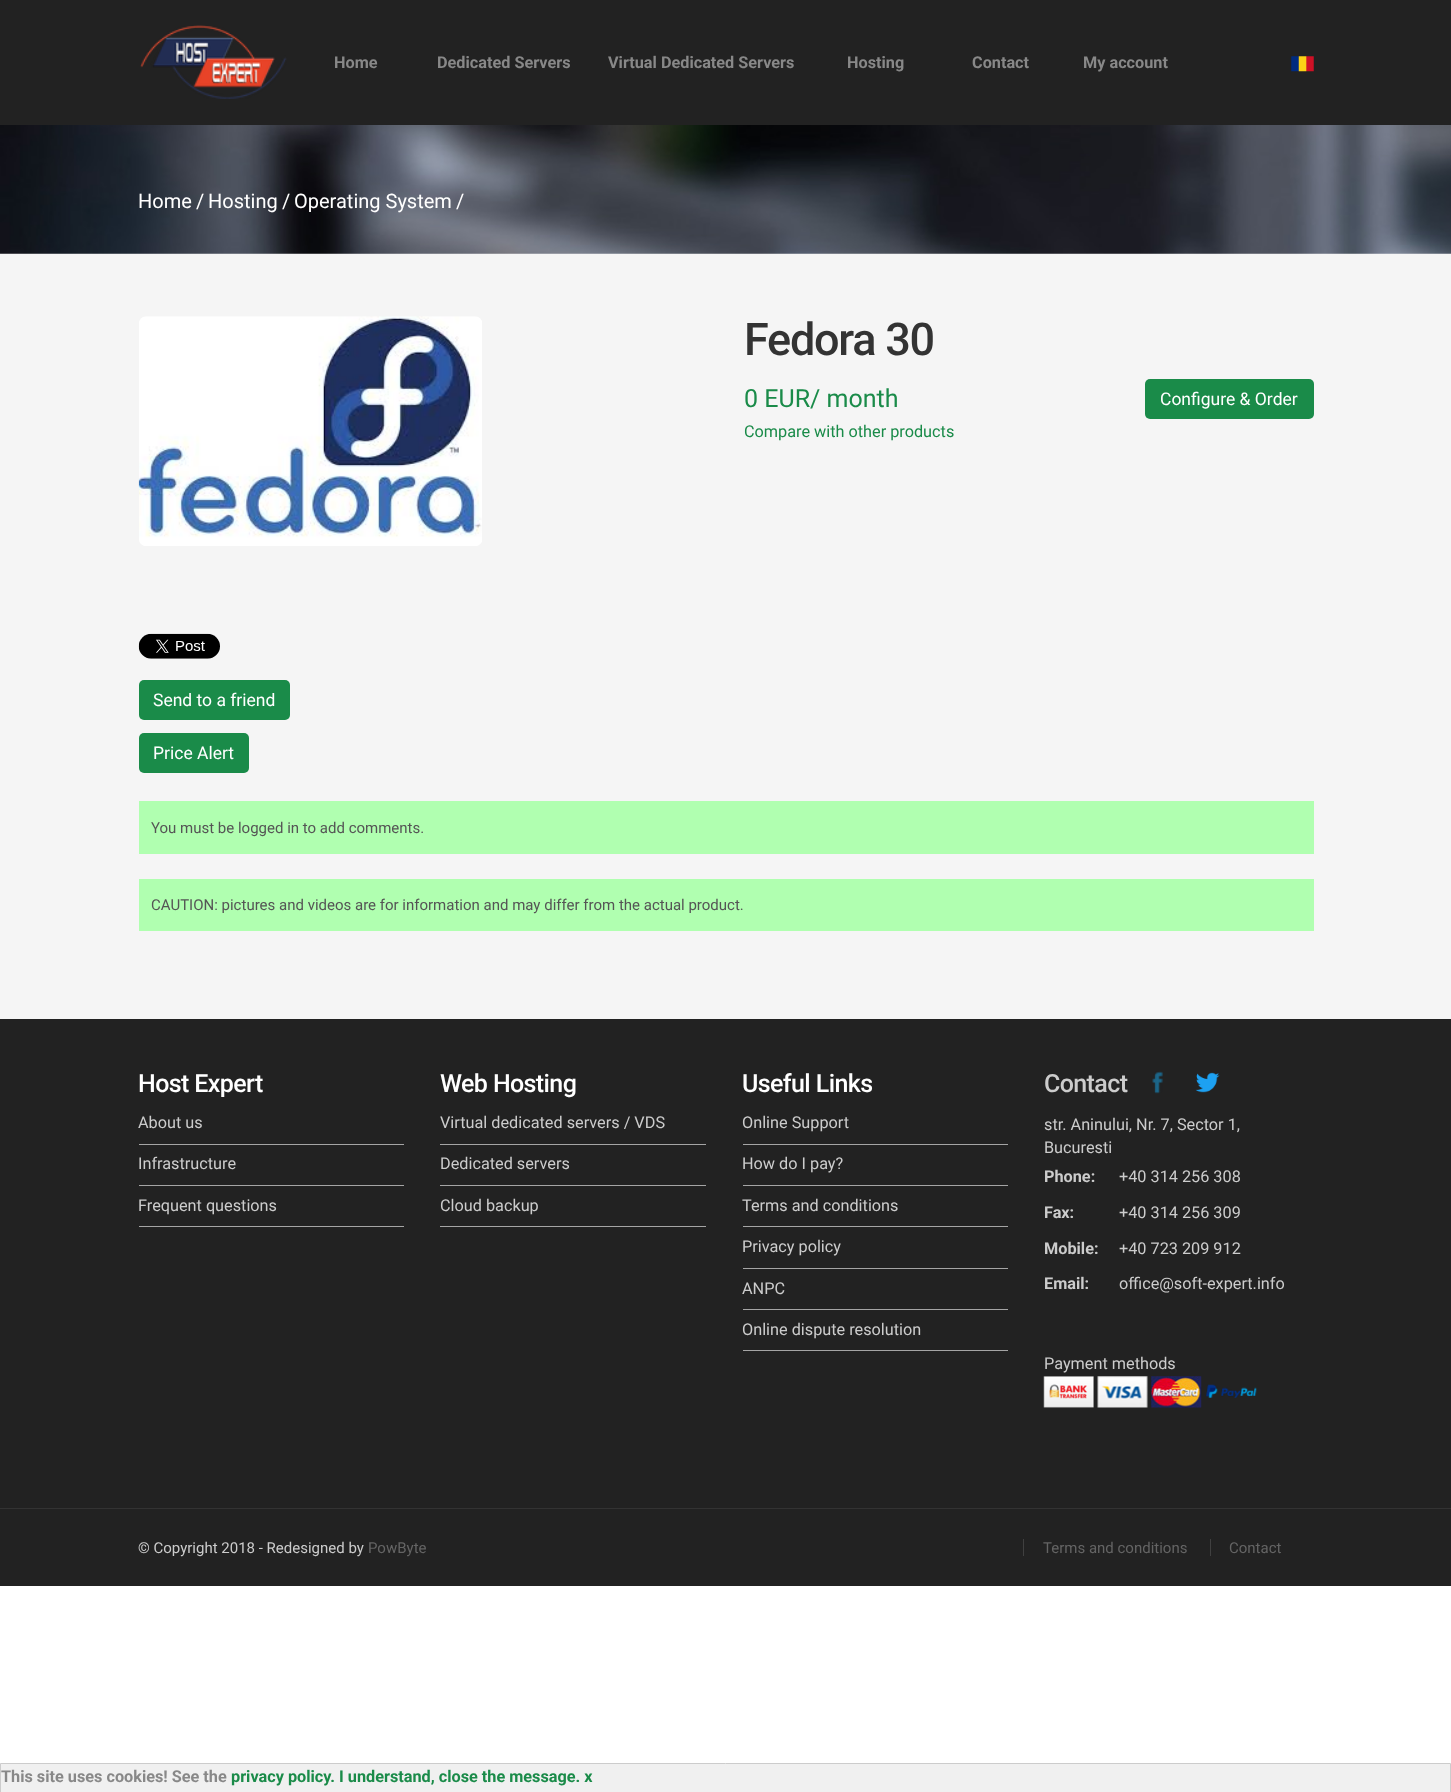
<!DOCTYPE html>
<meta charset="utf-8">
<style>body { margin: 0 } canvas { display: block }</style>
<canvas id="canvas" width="1451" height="1792"></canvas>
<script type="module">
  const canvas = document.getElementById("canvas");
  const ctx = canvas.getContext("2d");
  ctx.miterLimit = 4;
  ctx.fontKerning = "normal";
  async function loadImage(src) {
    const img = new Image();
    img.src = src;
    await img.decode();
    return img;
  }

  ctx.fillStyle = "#ffffff";
  ctx.fillRect(0, 0, 1451, 1792);
  ctx.fillStyle = "#f5f5f5";
  ctx.fillRect(0, 253, 1451, 766);
  ctx.fillStyle = "#222222";
  ctx.fillRect(0, 0, 1451, 125);
  ctx.drawImage(await loadImage("img1.png"), 140, 25, 147, 74);
  ctx.font = "bold 16.25px Roboto";
  ctx.fillStyle = "#888888";
  ctx.fillText("Home", 334, 68);
  ctx.fillText("Dedicated Servers", 437, 68);
  ctx.fillText("Virtual Dedicated Servers", 608, 68);
  ctx.fillText("Hosting", 847, 68);
  ctx.fillText("Contact", 972, 68);
  ctx.fillText("My account", 1083, 68);
  ctx.drawImage(await loadImage("img2.png"), 1291, 56, 23, 16);
  ctx.drawImage(await loadImage("img3.png"), 0, 125, 1451, 129);
  ctx.font = "20px Roboto";
  ctx.fillStyle = "#ffffff";
  ctx.fillText("Home", 138, 208);
  ctx.fillText("/", 196, 208);
  ctx.fillText("Hosting", 208, 208);
  ctx.fillText("/", 282, 208);
  ctx.fillText("Operating System", 294, 208);
  ctx.fillText("/", 456, 208);
  ctx.letterSpacing = "-1.25px";
  ctx.font = "500 45px Roboto";
  ctx.fillStyle = "#333333";
  ctx.fillText("Fedora 30", 744, 355);
  ctx.letterSpacing = "0px";
  ctx.font = "25px Roboto";
  ctx.fillStyle = "#1a8b49";
  ctx.fillText("0 EUR/ month", 744, 407);
  ctx.beginPath();
  ctx.roundRect(1145, 379, 169, 40, 5);
  ctx.fill();
  ctx.font = "17.5px Roboto";
  ctx.fillStyle = "#ffffff";
  ctx.fillText("Configure & Order", 1160, 405);
  ctx.font = "16.25px Roboto";
  ctx.fillStyle = "#1a8b49";
  ctx.fillText("Compare with other products", 744, 437);
  ctx.drawImage(await loadImage("img4.png"), 138, 316, 344, 230);
  ctx.drawImage(await loadImage("img5.png"), 138, 633, 82, 26);
  ctx.beginPath();
  ctx.roundRect(139, 680, 151, 40, 5);
  ctx.fill();
  ctx.font = "17.5px Roboto";
  ctx.fillStyle = "#ffffff";
  ctx.fillText("Send to a friend", 153, 706);
  ctx.fillStyle = "#1a8b49";
  ctx.beginPath();
  ctx.roundRect(139, 733, 110, 40, 5);
  ctx.fill();
  ctx.fillStyle = "#ffffff";
  ctx.fillText("Price Alert", 153, 759);
  ctx.fillStyle = "#b0ffb0";
  ctx.fillRect(139, 801, 1175, 53);
  ctx.font = "15px Roboto";
  ctx.fillStyle = "#555555";
  ctx.fillText("You must be logged in to add comments.", 151, 833);
  ctx.fillStyle = "#b0ffb0";
  ctx.fillRect(139, 879, 1175, 52);
  ctx.fillStyle = "#555555";
  ctx.fillText("CAUTION: pictures and videos are for information and may differ from the actual product.", 151, 910);
  ctx.fillStyle = "#222222";
  ctx.fillRect(0, 1019, 1451, 567);
  ctx.letterSpacing = "-0.6px";
  ctx.font = "500 25px Roboto";
  ctx.fillStyle = "#ffffff";
  ctx.fillText("Host Expert", 138, 1092);
  ctx.fillStyle = "#a5a5a5";
  ctx.fillRect(139, 1144, 265, 1);
  ctx.letterSpacing = "0px";
  ctx.font = "16.25px Roboto";
  ctx.fillStyle = "#cccccc";
  ctx.fillText("About us", 138, 1128);
  ctx.fillStyle = "#a5a5a5";
  ctx.fillRect(139, 1185, 265, 1);
  ctx.fillStyle = "#cccccc";
  ctx.fillText("Infrastructure", 138, 1169);
  ctx.fillStyle = "#a5a5a5";
  ctx.fillRect(139, 1226, 265, 1);
  ctx.fillStyle = "#cccccc";
  ctx.fillText("Frequent questions", 138, 1211);
  ctx.letterSpacing = "-0.6px";
  ctx.font = "500 25px Roboto";
  ctx.fillStyle = "#ffffff";
  ctx.fillText("Web Hosting", 440, 1092);
  ctx.fillStyle = "#a5a5a5";
  ctx.fillRect(440, 1144, 266, 1);
  ctx.letterSpacing = "0px";
  ctx.font = "16.25px Roboto";
  ctx.fillStyle = "#cccccc";
  ctx.fillText("Virtual dedicated servers / VDS", 440, 1128);
  ctx.fillStyle = "#a5a5a5";
  ctx.fillRect(440, 1185, 266, 1);
  ctx.fillStyle = "#cccccc";
  ctx.fillText("Dedicated servers", 440, 1169);
  ctx.fillStyle = "#a5a5a5";
  ctx.fillRect(440, 1226, 266, 1);
  ctx.fillStyle = "#cccccc";
  ctx.fillText("Cloud backup", 440, 1211);
  ctx.letterSpacing = "-0.6px";
  ctx.font = "500 25px Roboto";
  ctx.fillStyle = "#ffffff";
  ctx.fillText("Useful Links", 742, 1092);
  ctx.fillStyle = "#a5a5a5";
  ctx.fillRect(743, 1144, 265, 1);
  ctx.letterSpacing = "0px";
  ctx.font = "16.25px Roboto";
  ctx.fillStyle = "#cccccc";
  ctx.fillText("Online Support", 742, 1128);
  ctx.fillStyle = "#a5a5a5";
  ctx.fillRect(743, 1185, 265, 1);
  ctx.fillStyle = "#cccccc";
  ctx.fillText("How do I pay?", 742, 1169);
  ctx.fillStyle = "#a5a5a5";
  ctx.fillRect(743, 1226, 265, 1);
  ctx.fillStyle = "#cccccc";
  ctx.fillText("Terms and conditions", 742, 1211);
  ctx.fillStyle = "#a5a5a5";
  ctx.fillRect(743, 1268, 265, 1);
  ctx.fillStyle = "#cccccc";
  ctx.fillText("Privacy policy", 742, 1252);
  ctx.fillStyle = "#a5a5a5";
  ctx.fillRect(743, 1309, 265, 1);
  ctx.fillStyle = "#cccccc";
  ctx.fillText("ANPC", 742, 1294);
  ctx.fillStyle = "#a5a5a5";
  ctx.fillRect(743, 1350, 265, 1);
  ctx.fillStyle = "#cccccc";
  ctx.fillText("Online dispute resolution", 742, 1335);
  ctx.letterSpacing = "-0.6px";
  ctx.font = "500 25px Roboto";
  ctx.fillText("Contact", 1044, 1092);
  ctx.drawImage(await loadImage("img6.png"), 1152, 1071, 11, 23);
  ctx.drawImage(await loadImage("img7.png"), 1195, 1072, 25, 21);
  ctx.letterSpacing = "0px";
  ctx.font = "16.25px Roboto";
  ctx.fillText("str. Aninului, Nr. 7, Sector 1,", 1044, 1130);
  ctx.fillText("Bucuresti", 1044, 1153);
  ctx.font = "bold 16.25px Roboto";
  ctx.fillText("Phone:", 1044, 1182);
  ctx.font = "16.25px Roboto";
  ctx.fillText("+40 314 256 308", 1119, 1182);
  ctx.font = "bold 16.25px Roboto";
  ctx.fillText("Fax:", 1044, 1218);
  ctx.font = "16.25px Roboto";
  ctx.fillText("+40 314 256 309", 1119, 1218);
  ctx.font = "bold 16.25px Roboto";
  ctx.fillText("Mobile:", 1044, 1254);
  ctx.font = "16.25px Roboto";
  ctx.fillText("+40 723 209 912", 1119, 1254);
  ctx.font = "bold 16.25px Roboto";
  ctx.fillText("Email:", 1044, 1289);
  ctx.font = "16.25px Roboto";
  ctx.fillText("office@soft-expert.info", 1119, 1289);
  ctx.fillText("Payment methods", 1044, 1369);
  ctx.drawImage(await loadImage("img8.png"), 1043, 1376, 51, 32);
  ctx.drawImage(await loadImage("img9.png"), 1097, 1376, 51, 32);
  ctx.drawImage(await loadImage("img10.png"), 1151, 1376, 51, 32);
  ctx.drawImage(await loadImage("img11.png"), 1206, 1384, 51, 14);
  ctx.fillStyle = "#333333";
  ctx.fillRect(0, 1508, 1451, 1);
  ctx.font = "15px Roboto";
  ctx.fillStyle = "#cccccc";
  ctx.fillText("© Copyright 2018 - Redesigned by", 138, 1553);
  ctx.fillStyle = "#646464";
  ctx.fillText("PowByte", 368, 1553);
  ctx.fillText("Terms and conditions", 1043, 1553);
  ctx.fillStyle = "#404040";
  ctx.fillRect(1023, 1539, 1, 17);
  ctx.fillStyle = "#646464";
  ctx.fillText("Contact", 1229, 1553);
  ctx.fillStyle = "#404040";
  ctx.fillRect(1210, 1539, 1, 17);
  ctx.fillStyle = "#f0f0f0";
  ctx.beginPath();
  ctx.rect(0.5, 1763.5, 1450, 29);
  ctx.fill();
  ctx.strokeStyle = "#cccccc";
  ctx.stroke();
  ctx.font = "bold 16.25px Roboto";
  ctx.fillStyle = "#888888";
  ctx.fillText("This site uses cookies! See the", 1, 1782);
  ctx.fillStyle = "#1a8b49";
  ctx.fillText("privacy policy. I understand, close the message. x", 231, 1782);
</script>
